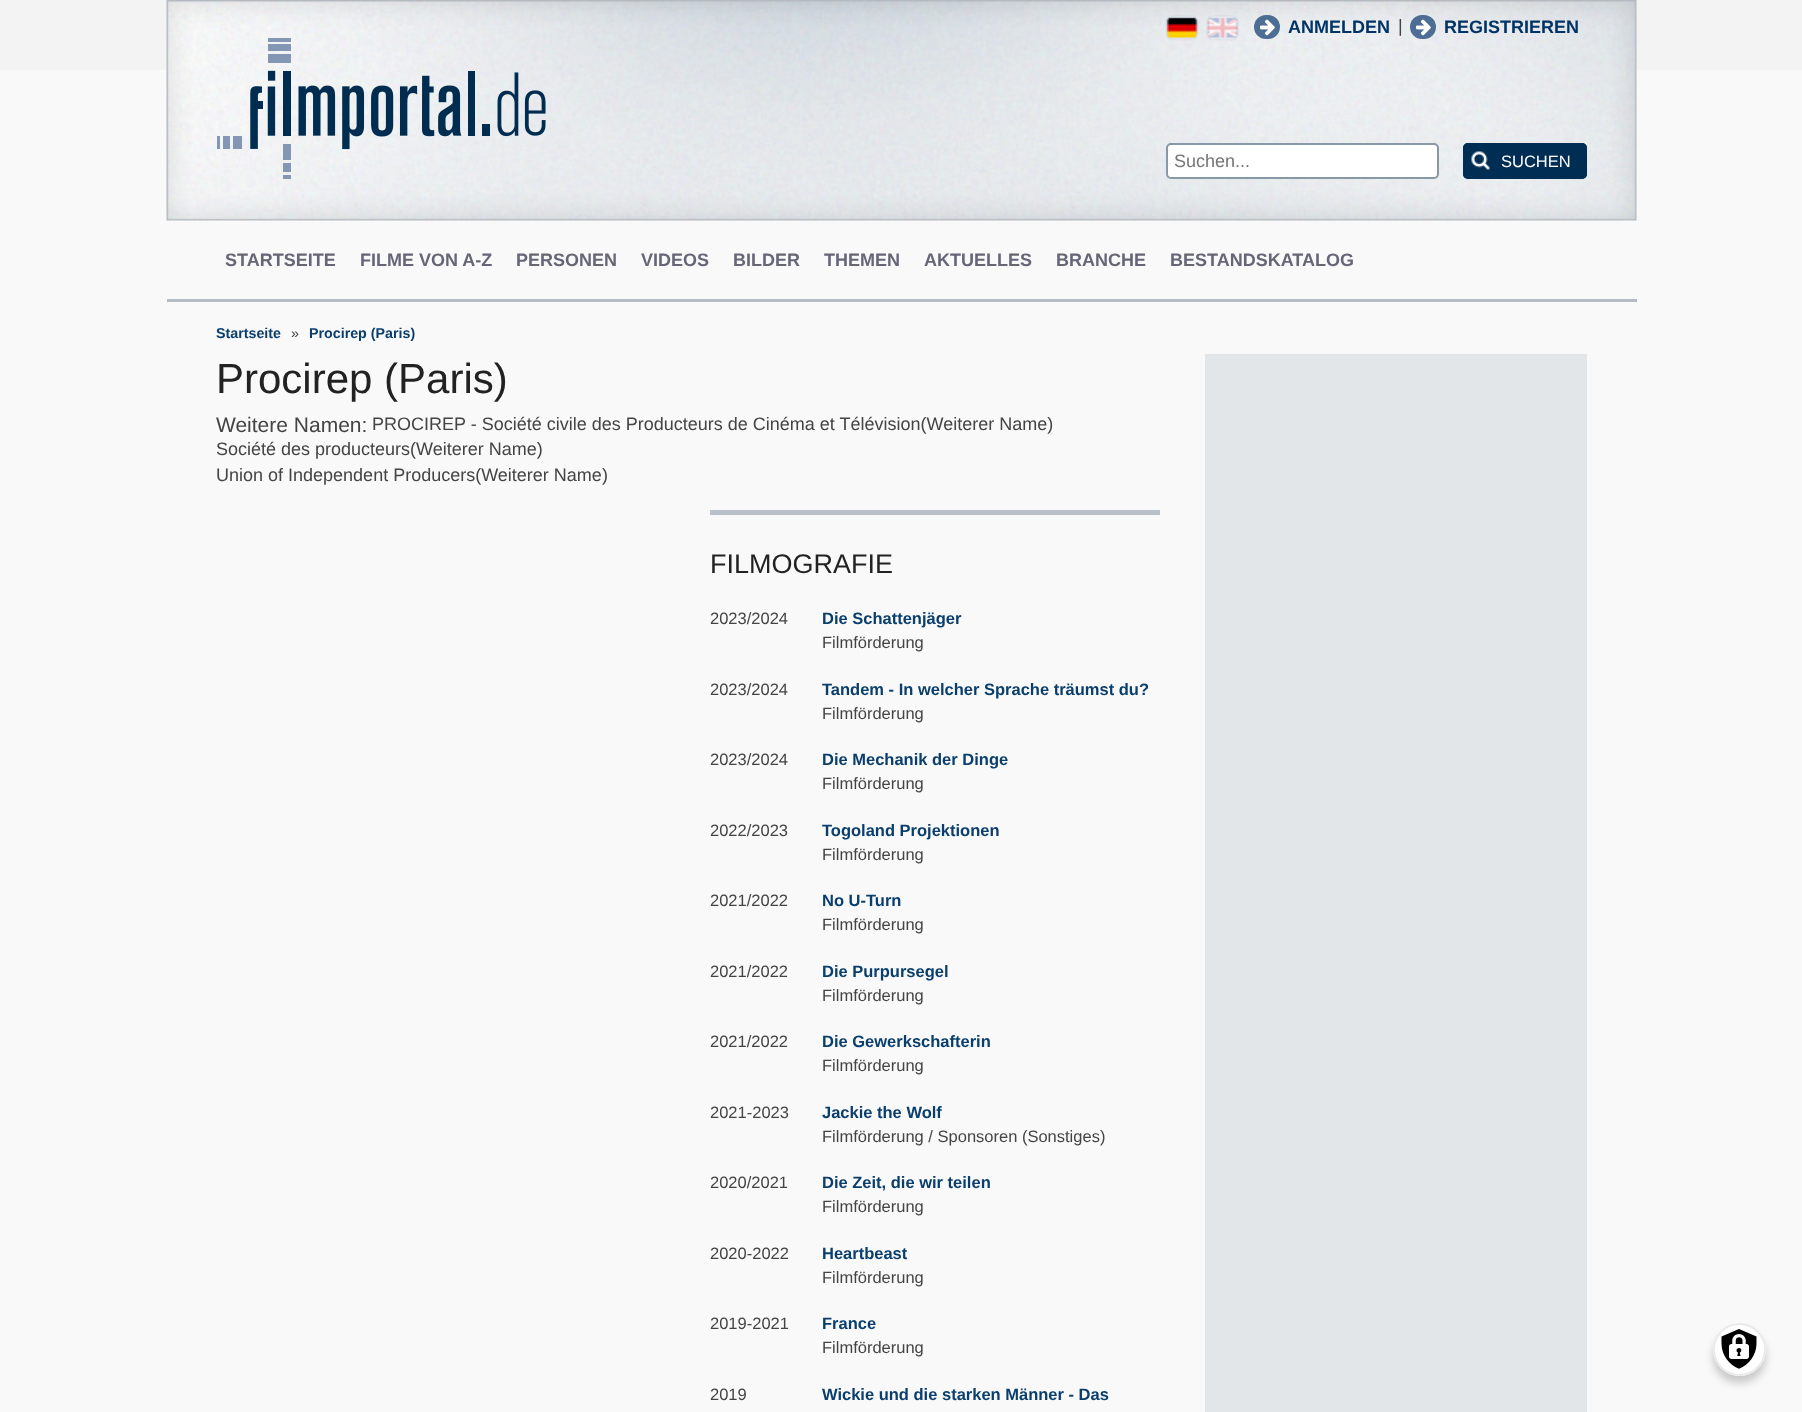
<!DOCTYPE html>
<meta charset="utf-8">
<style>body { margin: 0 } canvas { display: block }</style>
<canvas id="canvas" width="1802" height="1412"></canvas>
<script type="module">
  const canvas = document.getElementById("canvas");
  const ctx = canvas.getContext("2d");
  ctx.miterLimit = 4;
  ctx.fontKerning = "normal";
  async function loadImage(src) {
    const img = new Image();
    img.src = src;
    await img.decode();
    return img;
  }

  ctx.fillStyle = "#f9f9f9";
  ctx.fillRect(0, 0, 1802, 1412);
  ctx.fillStyle = "#f3f3f3";
  ctx.fillRect(0, 0, 1802, 70);
  ctx.drawImage(await loadImage("img1.png"), 166, 0, 1471, 221);
  ctx.drawImage(await loadImage("img2.png"), 217, 38, 329, 141);
  ctx.drawImage(await loadImage("img3.png"), 1165, 15, 34, 26);
  ctx.drawImage(await loadImage("img4.png"), 1206, 15, 33, 26);
  ctx.fillStyle = "#4e6d95";
  ctx.beginPath();
  ctx.roundRect(1254, 15, 26, 24, 12);
  ctx.fill();
  ctx.drawImage(await loadImage("img5.png"), 1260, 19, 15, 17);
  ctx.font = "bold 18px Liberation Sans";
  ctx.fillStyle = "#003366";
  ctx.fillText("ANMELDEN", 1288, 33);
  ctx.font = "18px Liberation Sans";
  ctx.fillStyle = "#444444";
  ctx.fillText("|", 1398, 32);
  ctx.fillStyle = "#4e6d95";
  ctx.beginPath();
  ctx.roundRect(1410, 15, 26, 24, 12);
  ctx.fill();
  ctx.drawImage(await loadImage("img5.png"), 1416, 19, 15, 17);
  ctx.font = "bold 18px Liberation Sans";
  ctx.fillStyle = "#003366";
  ctx.fillText("REGISTRIEREN", 1444, 33);
  ctx.fillStyle = "#ffffff";
  ctx.beginPath();
  ctx.roundRect(1167, 144, 271, 34, 4);
  ctx.fill();
  ctx.strokeStyle = "#8998a6";
  ctx.lineWidth = 2;
  ctx.stroke();
  ctx.font = "18px Liberation Sans";
  ctx.fillStyle = "#757575";
  ctx.fillText("Suchen...", 1174, 167);
  ctx.fillStyle = "#002d54";
  ctx.beginPath();
  ctx.roundRect(1463, 143, 124, 36, 5);
  ctx.fill();
  ctx.drawImage(await loadImage("img6.png"), 1471, 151, 19, 19);
  ctx.beginPath();
  ctx.roundRect(1464, 144, 122, 34, 4);
  ctx.strokeStyle = "#002d54";
  ctx.stroke();
  ctx.font = "16.5px Liberation Sans";
  ctx.fillStyle = "#ffffff";
  ctx.fillText("SUCHEN", 1501, 167);
  ctx.fillStyle = "#b5bbc2";
  ctx.fillRect(167, 299, 1470, 3);
  ctx.font = "bold 18px Liberation Sans";
  ctx.fillStyle = "#666677";
  ctx.fillText("STARTSEITE", 225, 266);
  ctx.fillText("FILME VON A-Z", 360, 266);
  ctx.fillText("PERSONEN", 516, 266);
  ctx.fillText("VIDEOS", 641, 266);
  ctx.fillText("BILDER", 733, 266);
  ctx.fillText("THEMEN", 824, 266);
  ctx.fillText("AKTUELLES", 924, 266);
  ctx.fillText("BRANCHE", 1056, 266);
  ctx.fillText("BESTANDSKATALOG", 1170, 266);
  ctx.font = "bold 14.25px Liberation Sans";
  ctx.fillStyle = "#093e6d";
  ctx.fillText("Startseite", 216, 338);
  ctx.font = "14.25px Liberation Sans";
  ctx.fillStyle = "#444444";
  ctx.fillText("»", 291, 338);
  ctx.font = "bold 14.25px Liberation Sans";
  ctx.fillStyle = "#093e6d";
  ctx.fillText("Procirep (Paris)", 309, 338);
  ctx.font = "42px Liberation Sans";
  ctx.fillStyle = "#222222";
  ctx.fillText("Procirep (Paris)", 216, 393);
  ctx.font = "21px Liberation Sans";
  ctx.fillStyle = "#444444";
  ctx.fillText("Weitere Namen:", 216, 432);
  ctx.font = "18px Liberation Sans";
  ctx.fillText("PROCIREP - Société civile des Producteurs de Cinéma et Télévision(Weiterer Name)", 372, 430);
  ctx.fillText("Société des producteurs(Weiterer Name)", 216, 455);
  ctx.fillText("Union of Independent Producers(Weiterer Name)", 216, 481);
  ctx.fillStyle = "#b9c0c7";
  ctx.fillRect(710, 510, 450, 5);
  ctx.font = "27px Liberation Sans";
  ctx.fillStyle = "#222222";
  ctx.fillText("FILMOGRAFIE", 710, 573);
  ctx.font = "16.5px Liberation Sans";
  ctx.fillStyle = "#444444";
  ctx.fillText("2023/2024", 710, 624);
  ctx.font = "bold 16.5px Liberation Sans";
  ctx.fillStyle = "#093e6d";
  ctx.fillText("Die Schattenjäger", 822, 624);
  ctx.font = "16.5px Liberation Sans";
  ctx.fillStyle = "#444444";
  ctx.fillText("Filmförderung", 822, 648);
  ctx.fillText("2023/2024", 710, 695);
  ctx.font = "bold 16.5px Liberation Sans";
  ctx.fillStyle = "#093e6d";
  ctx.fillText("Tandem - In welcher Sprache träumst du?", 822, 695);
  ctx.font = "16.5px Liberation Sans";
  ctx.fillStyle = "#444444";
  ctx.fillText("Filmförderung", 822, 719);
  ctx.fillText("2023/2024", 710, 765);
  ctx.font = "bold 16.5px Liberation Sans";
  ctx.fillStyle = "#093e6d";
  ctx.fillText("Die Mechanik der Dinge", 822, 765);
  ctx.font = "16.5px Liberation Sans";
  ctx.fillStyle = "#444444";
  ctx.fillText("Filmförderung", 822, 789);
  ctx.fillText("2022/2023", 710, 836);
  ctx.font = "bold 16.5px Liberation Sans";
  ctx.fillStyle = "#093e6d";
  ctx.fillText("Togoland Projektionen", 822, 836);
  ctx.font = "16.5px Liberation Sans";
  ctx.fillStyle = "#444444";
  ctx.fillText("Filmförderung", 822, 860);
  ctx.fillText("2021/2022", 710, 906);
  ctx.font = "bold 16.5px Liberation Sans";
  ctx.fillStyle = "#093e6d";
  ctx.fillText("No U-Turn", 822, 906);
  ctx.font = "16.5px Liberation Sans";
  ctx.fillStyle = "#444444";
  ctx.fillText("Filmförderung", 822, 930);
  ctx.fillText("2021/2022", 710, 977);
  ctx.font = "bold 16.5px Liberation Sans";
  ctx.fillStyle = "#093e6d";
  ctx.fillText("Die Purpursegel", 822, 977);
  ctx.font = "16.5px Liberation Sans";
  ctx.fillStyle = "#444444";
  ctx.fillText("Filmförderung", 822, 1001);
  ctx.fillText("2021/2022", 710, 1047);
  ctx.font = "bold 16.5px Liberation Sans";
  ctx.fillStyle = "#093e6d";
  ctx.fillText("Die Gewerkschafterin", 822, 1047);
  ctx.font = "16.5px Liberation Sans";
  ctx.fillStyle = "#444444";
  ctx.fillText("Filmförderung", 822, 1071);
  ctx.fillText("2021-2023", 710, 1118);
  ctx.font = "bold 16.5px Liberation Sans";
  ctx.fillStyle = "#093e6d";
  ctx.fillText("Jackie the Wolf", 822, 1118);
  ctx.font = "16.5px Liberation Sans";
  ctx.fillStyle = "#444444";
  ctx.fillText("Filmförderung / Sponsoren (Sonstiges)", 822, 1142);
  ctx.fillText("2020/2021", 710, 1188);
  ctx.font = "bold 16.5px Liberation Sans";
  ctx.fillStyle = "#093e6d";
  ctx.fillText("Die Zeit, die wir teilen", 822, 1188);
  ctx.font = "16.5px Liberation Sans";
  ctx.fillStyle = "#444444";
  ctx.fillText("Filmförderung", 822, 1212);
  ctx.fillText("2020-2022", 710, 1259);
  ctx.font = "bold 16.5px Liberation Sans";
  ctx.fillStyle = "#093e6d";
  ctx.fillText("Heartbeast", 822, 1259);
  ctx.font = "16.5px Liberation Sans";
  ctx.fillStyle = "#444444";
  ctx.fillText("Filmförderung", 822, 1283);
  ctx.fillText("2019-2021", 710, 1329);
  ctx.font = "bold 16.5px Liberation Sans";
  ctx.fillStyle = "#093e6d";
  ctx.fillText("France", 822, 1329);
  ctx.font = "16.5px Liberation Sans";
  ctx.fillStyle = "#444444";
  ctx.fillText("Filmförderung", 822, 1353);
  ctx.fillText("2019", 710, 1400);
  ctx.font = "bold 16.5px Liberation Sans";
  ctx.fillStyle = "#093e6d";
  ctx.fillText("Wickie und die starken Männer - Das", 822, 1400);
  ctx.fillStyle = "#e2e6e9";
  ctx.fillRect(1205, 354, 382, 1058);
  ctx.fillStyle = "rgba(0, 0, 0, 0.2)";
  ctx.filter = "blur(4px)";
  ctx.beginPath();
  ctx.roundRect(1713, 1331, 53, 52, 26);
  ctx.fill();
  ctx.filter = "none";
  ctx.fillStyle = "#ffffff";
  ctx.beginPath();
  ctx.arc(1739.5, 1349.5, 26.5, 0, Math.PI * 2);
  ctx.fill();
  ctx.drawImage(await loadImage("img7.png"), 1721, 1329, 36, 40);
  ctx.beginPath();
  ctx.arc(1739.5, 1349.5, 25.5, 0, Math.PI * 2);
  ctx.strokeStyle = "#eaeaea";
  ctx.stroke();
</script>
